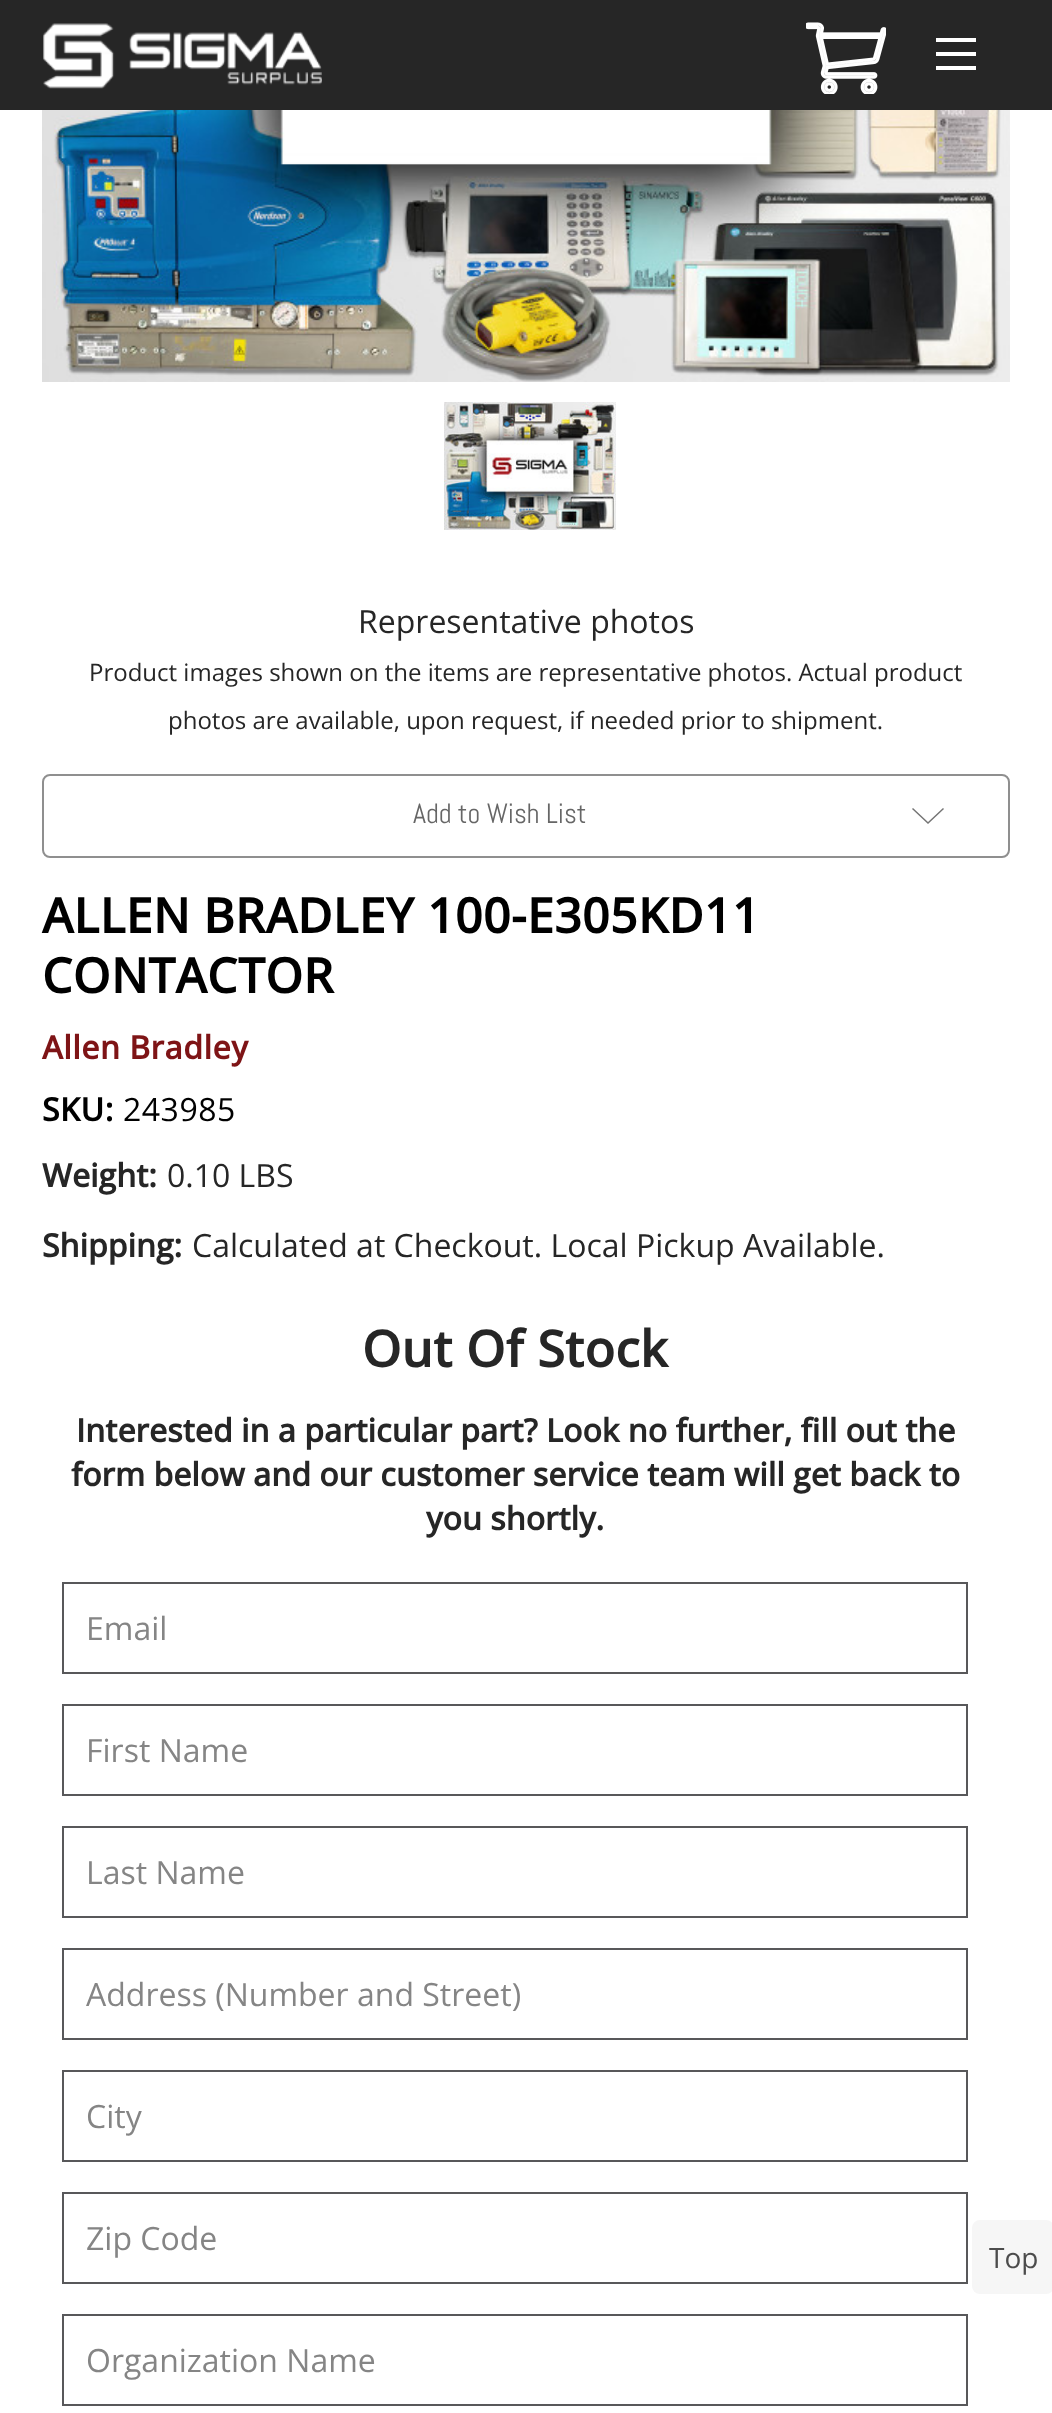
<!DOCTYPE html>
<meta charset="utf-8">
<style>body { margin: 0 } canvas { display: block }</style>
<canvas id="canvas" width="1052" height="2413"></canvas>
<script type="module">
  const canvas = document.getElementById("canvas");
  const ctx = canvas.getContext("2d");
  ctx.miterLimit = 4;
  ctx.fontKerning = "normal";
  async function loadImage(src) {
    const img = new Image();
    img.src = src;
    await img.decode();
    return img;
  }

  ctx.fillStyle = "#ffffff";
  ctx.fillRect(0, 0, 1052, 2413);
  ctx.fillStyle = "#262626";
  ctx.fillRect(0, 0, 1052, 110);
  ctx.drawImage(await loadImage("img1.png"), 43, 23, 279, 66);
  ctx.drawImage(await loadImage("img2.png"), 806, 22, 80, 72);
  ctx.fillStyle = "#ffffff";
  ctx.fillRect(936, 52, 40, 4);
  ctx.fillRect(936, 38, 40, 4);
  ctx.fillRect(936, 66, 40, 4);
  ctx.drawImage(await loadImage("img3.png"), 42, 110, 968, 272);
  ctx.drawImage(await loadImage("img4.png"), 444, 402, 172, 128);
  ctx.font = "32px Open Sans";
  ctx.fillStyle = "#262626";
  ctx.fillText("Representative photos", 358, 633);
  ctx.font = "24px Open Sans";
  ctx.fillText("Product images shown on the items are representative photos. Actual product", 89, 681);
  ctx.fillText("photos are available, upon request, if needed prior to shipment.", 168, 729);
  ctx.beginPath();
  ctx.roundRect(43, 775, 966, 82, 7);
  ctx.strokeStyle = "#8f8f8f";
  ctx.lineWidth = 2;
  ctx.stroke();
  ctx.font = "28px Abel";
  ctx.fillStyle = "#666666";
  ctx.fillText("Add to Wish List", 413, 823);
  ctx.fillStyle = "#757575";
  ctx.beginPath();
  ctx.moveTo(928, 822);
  ctx.lineTo(943, 808);
  ctx.lineTo(944, 809);
  ctx.lineTo(928, 824);
  ctx.lineTo(912, 809);
  ctx.lineTo(913, 808);
  ctx.closePath();
  ctx.fill("evenodd");
  ctx.letterSpacing = "0.5px";
  ctx.font = "bold 48px Open Sans";
  ctx.fillStyle = "#000000";
  ctx.fillText("ALLEN BRADLEY 100-E305KD11", 42, 933);
  ctx.fillText("CONTACTOR", 42, 993);
  ctx.font = "bold 32px Open Sans";
  ctx.fillStyle = "#7e1416";
  ctx.fillText("Allen Bradley", 42, 1059);
  ctx.fillStyle = "#000000";
  ctx.fillText("SKU:", 42, 1121);
  ctx.font = "32px Open Sans";
  ctx.fillText("243985", 123, 1121);
  ctx.letterSpacing = "0px";
  ctx.font = "bold 32px Open Sans";
  ctx.fillStyle = "#262626";
  ctx.fillText("Weight:", 42, 1187);
  ctx.font = "32px Open Sans";
  ctx.fillText("0.10 LBS", 167, 1187);
  ctx.font = "bold 32px Open Sans";
  ctx.fillText("Shipping:", 42, 1257);
  ctx.font = "32px Open Sans";
  ctx.fillText("Calculated at Checkout. Local Pickup Available.", 192, 1257);
  ctx.letterSpacing = "0.5px";
  ctx.font = "bold 50px Open Sans";
  ctx.fillText("Out Of Stock", 362, 1367);
  ctx.letterSpacing = "0px";
  ctx.font = "bold 32px Open Sans";
  ctx.fillText("Interested in a particular part? Look no further, fill out the", 76, 1442);
  ctx.fillText("form below and our customer service team will get back to", 71, 1486);
  ctx.fillText("you shortly.", 426, 1530);
  ctx.strokeStyle = "#58585a";
  ctx.strokeRect(63, 1583, 904, 90);
  ctx.font = "32px Open Sans";
  ctx.fillStyle = "#858585";
  ctx.fillText("Email", 86, 1640);
  ctx.strokeRect(63, 1705, 904, 90);
  ctx.fillText("First Name", 86, 1762);
  ctx.strokeRect(63, 1827, 904, 90);
  ctx.fillText("Last Name", 86, 1884);
  ctx.strokeRect(63, 1949, 904, 90);
  ctx.fillText("Address (Number and Street)", 86, 2006);
  ctx.strokeRect(63, 2071, 904, 90);
  ctx.fillText("City", 86, 2128);
  ctx.strokeRect(63, 2193, 904, 90);
  ctx.fillText("Zip Code", 86, 2250);
  ctx.strokeRect(63, 2315, 904, 90);
  ctx.fillText("Organization Name", 86, 2372);
  ctx.fillStyle = "#f6f6f6";
  ctx.beginPath();
  ctx.roundRect(972, 2220, 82, 74, 8);
  ctx.fill();
  ctx.font = "28px Open Sans";
  ctx.fillStyle = "#4c4c4c";
  ctx.fillText("Top", 989, 2268);
</script>
